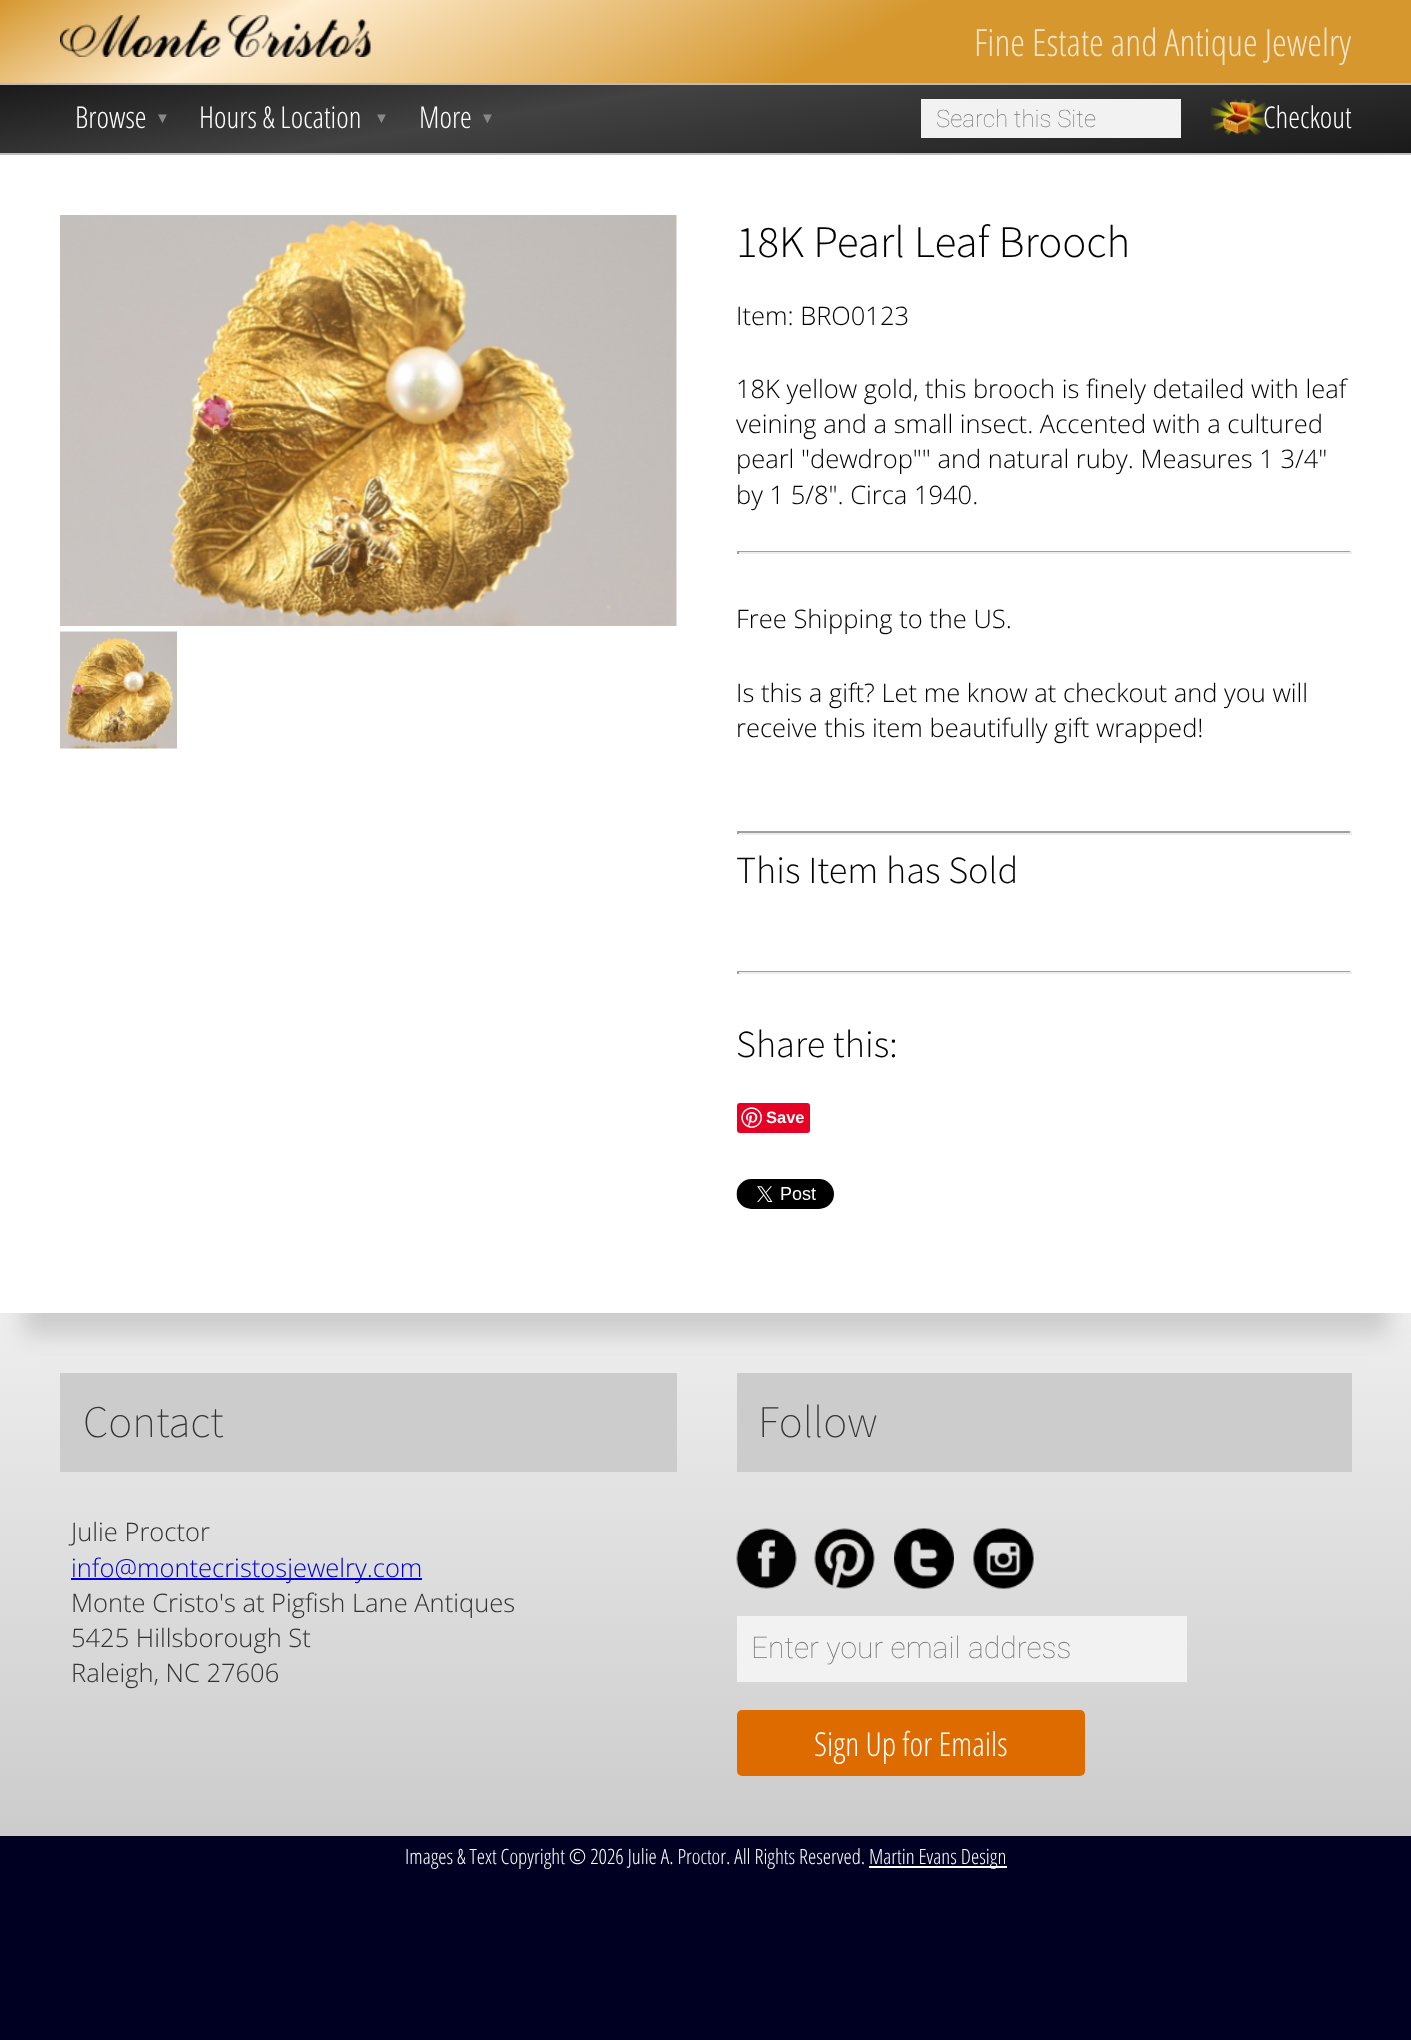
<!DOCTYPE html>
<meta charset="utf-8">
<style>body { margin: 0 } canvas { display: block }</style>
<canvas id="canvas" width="1411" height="2040"></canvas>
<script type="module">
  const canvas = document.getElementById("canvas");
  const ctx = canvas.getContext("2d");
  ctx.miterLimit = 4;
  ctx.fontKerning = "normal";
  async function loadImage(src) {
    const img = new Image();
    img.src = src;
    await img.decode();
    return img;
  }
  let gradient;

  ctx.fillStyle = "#000022";
  ctx.fillRect(0, 0, 1411, 2040);
  gradient = ctx.createLinearGradient(522, -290, 889, 372);
  gradient.addColorStop(0, "#d5972e");
  gradient.addColorStop(0.2, "#ffeed2");
  gradient.addColorStop(0.6, "#d5972e");
  ctx.fillStyle = gradient;
  ctx.fillRect(0, 0, 1411, 83);
  ctx.drawImage(await loadImage("img1.png"), 60, 15, 311, 42);
  ctx.font = "300 37.5px Open Sans Condensed";
  ctx.fillStyle = "#f4e4c9";
  ctx.fillText("Fine Estate and Antique Jewelry", 974, 56);
  gradient = ctx.createLinearGradient(683, -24, 728, 261);
  gradient.addColorStop(0, "#1a1a1a");
  gradient.addColorStop(0.38, "#424242");
  gradient.addColorStop(1, "#1a1a1a");
  ctx.fillStyle = gradient;
  ctx.fillRect(0, 85, 1411, 68);
  ctx.fillStyle = "#bdbdbd";
  ctx.fillRect(0, 83, 1411, 2);
  ctx.fillRect(0, 153, 1411, 2);
  ctx.font = "300 30px Open Sans Condensed";
  ctx.fillStyle = "#ffffff";
  ctx.fillText("Browse", 75, 128);
  ctx.font = "15px Liberation Serif";
  ctx.fillStyle = "#888888";
  ctx.fillText("▼", 155, 123);
  ctx.font = "300 30px Open Sans Condensed";
  ctx.fillStyle = "#ffffff";
  ctx.fillText("Hours & Location", 199, 128);
  ctx.font = "15px Liberation Serif";
  ctx.fillStyle = "#888888";
  ctx.fillText("▼", 374, 123);
  ctx.font = "300 30px Open Sans Condensed";
  ctx.fillStyle = "#ffffff";
  ctx.fillText("More", 419, 128);
  ctx.font = "15px Liberation Serif";
  ctx.fillStyle = "#888888";
  ctx.fillText("▼", 480, 123);
  ctx.fillStyle = "#f2f2f2";
  ctx.fillRect(921, 99, 260, 39);
  ctx.font = "100 24px Roboto";
  ctx.fillStyle = "#757575";
  ctx.fillText("Search this Site", 936, 127);
  ctx.drawImage(await loadImage("img2.png"), 1210, 99, 59, 36);
  ctx.font = "300 30px Open Sans Condensed";
  ctx.fillStyle = "#ffffff";
  ctx.fillText("Checkout", 1263, 128);
  gradient = ctx.createLinearGradient(706, 1313, 706, 1836);
  gradient.addColorStop(0, "#eeeeee");
  gradient.addColorStop(1, "#cccccc");
  ctx.fillStyle = gradient;
  ctx.fillRect(0, 1313, 1411, 523);
  ctx.fillStyle = "#cccccc";
  ctx.filter = "blur(11px)";
  ctx.beginPath();
  ctx.rect(23, 222, 1366, 1113);
  ctx.fill();
  ctx.filter = "none";
  ctx.fillStyle = "#ffffff";
  ctx.fillRect(0, 155, 1411, 1158);
  ctx.drawImage(await loadImage("img3.png"), 60, 215, 617, 411);
  ctx.drawImage(await loadImage("img4.png"), 60, 631, 117, 118);
  ctx.font = "300 45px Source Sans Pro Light";
  ctx.fillStyle = "#000000";
  ctx.fillText("18K Pearl Leaf Brooch", 736, 257);
  ctx.font = "300 25.5px Open Sans";
  ctx.fillText("Item: BRO0123", 736, 325);
  ctx.fillText("18K yellow gold, this brooch is finely detailed with leaf", 736, 398);
  ctx.fillText("veining and a small insect. Accented with a cultured", 736, 433);
  ctx.fillText("pearl \"dewdrop\"\" and natural ruby. Measures 1 3/4\"", 736, 468);
  ctx.fillText("by 1 5/8\". Circa 1940.", 736, 504);
  ctx.fillStyle = "#9f9f9f";
  ctx.fillRect(737, 551, 615, 1);
  ctx.fillStyle = "#eeeeee";
  ctx.fillRect(1350, 551, 2, 3);
  ctx.fillRect(737, 552, 615, 2);
  ctx.fillStyle = "#9f9f9f";
  ctx.fillRect(737, 551, 2, 3);
  ctx.fillStyle = "#000000";
  ctx.fillText("Free Shipping to the US.", 736, 628);
  ctx.fillText("Is this a gift? Let me know at checkout and you will", 736, 702);
  ctx.fillText("receive this item beautifully gift wrapped!", 736, 737);
  ctx.fillStyle = "#9f9f9f";
  ctx.fillRect(737, 831, 615, 2);
  ctx.fillStyle = "#eeeeee";
  ctx.fillRect(1350, 831, 2, 3);
  ctx.fillRect(737, 833, 615, 2);
  ctx.fillStyle = "#9f9f9f";
  ctx.fillRect(737, 831, 2, 3);
  ctx.font = "300 38.25px Source Sans Pro Light";
  ctx.fillStyle = "#000000";
  ctx.fillText("This Item has Sold", 736, 883);
  ctx.fillStyle = "#9f9f9f";
  ctx.fillRect(737, 971, 615, 1);
  ctx.fillStyle = "#eeeeee";
  ctx.fillRect(1350, 971, 2, 3);
  ctx.fillRect(737, 972, 615, 2);
  ctx.fillStyle = "#9f9f9f";
  ctx.fillRect(737, 971, 2, 3);
  ctx.fillStyle = "#000000";
  ctx.fillText("Share this:", 736, 1057);
  ctx.fillStyle = "#e60023";
  ctx.beginPath();
  ctx.roundRect(737, 1103, 73, 30, 3);
  ctx.fill();
  ctx.drawImage(await loadImage("img5.png"), 741, 1107, 21, 21);
  ctx.font = "bold 16.5px Liberation Sans";
  ctx.fillStyle = "#ffffff";
  ctx.fillText("Save", 766, 1123);
  ctx.drawImage(await loadImage("img6.png"), 736, 1179, 98, 30);
  ctx.fillStyle = "#cccccc";
  ctx.fillRect(60, 1373, 617, 99);
  ctx.font = "200 45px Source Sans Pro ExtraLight";
  ctx.fillStyle = "#333333";
  ctx.fillText("Contact", 83, 1437);
  ctx.font = "300 25.5px Open Sans";
  ctx.fillText("Julie Proctor", 71, 1541);
  ctx.fillStyle = "#0000dd";
  ctx.fillRect(71, 1578, 351, 2);
  ctx.fillText("info@montecristosjewelry.com", 71, 1577);
  ctx.fillStyle = "#333333";
  ctx.fillText("Monte Cristo's at Pigfish Lane Antiques", 71, 1612);
  ctx.fillText("5425 Hillsborough St", 71, 1647);
  ctx.fillText("Raleigh, NC 27606", 71, 1682);
  ctx.fillStyle = "#cccccc";
  ctx.fillRect(737, 1373, 615, 99);
  ctx.font = "200 45px Source Sans Pro ExtraLight";
  ctx.fillStyle = "#333333";
  ctx.fillText("Follow", 758, 1437);
  ctx.drawImage(await loadImage("img7.png"), 736, 1528, 61, 61);
  ctx.drawImage(await loadImage("img8.png"), 814, 1528, 61, 61);
  ctx.drawImage(await loadImage("img9.png"), 894, 1528, 60, 61);
  ctx.drawImage(await loadImage("img10.png"), 973, 1528, 61, 61);
  ctx.fillStyle = "#f2f2f2";
  ctx.fillRect(737, 1616, 450, 66);
  ctx.font = "100 30px Roboto";
  ctx.fillStyle = "#757575";
  ctx.fillText("Enter your email address", 751, 1658);
  ctx.fillStyle = "#de6b00";
  ctx.beginPath();
  ctx.roundRect(737, 1710, 348, 66, 5);
  ctx.fill();
  ctx.font = "300 33px Open Sans Condensed";
  ctx.fillStyle = "#ffffff";
  ctx.fillText("Sign Up for Emails", 814, 1756);
  ctx.font = "300 21px Open Sans Condensed";
  ctx.fillText("Images & Text Copyright © 2026 Julie A. Proctor. All Rights Reserved.", 405, 1864);
  ctx.fillRect(869, 1866, 138, 2);
  ctx.fillText("Martin Evans Design", 869, 1864);
</script>
